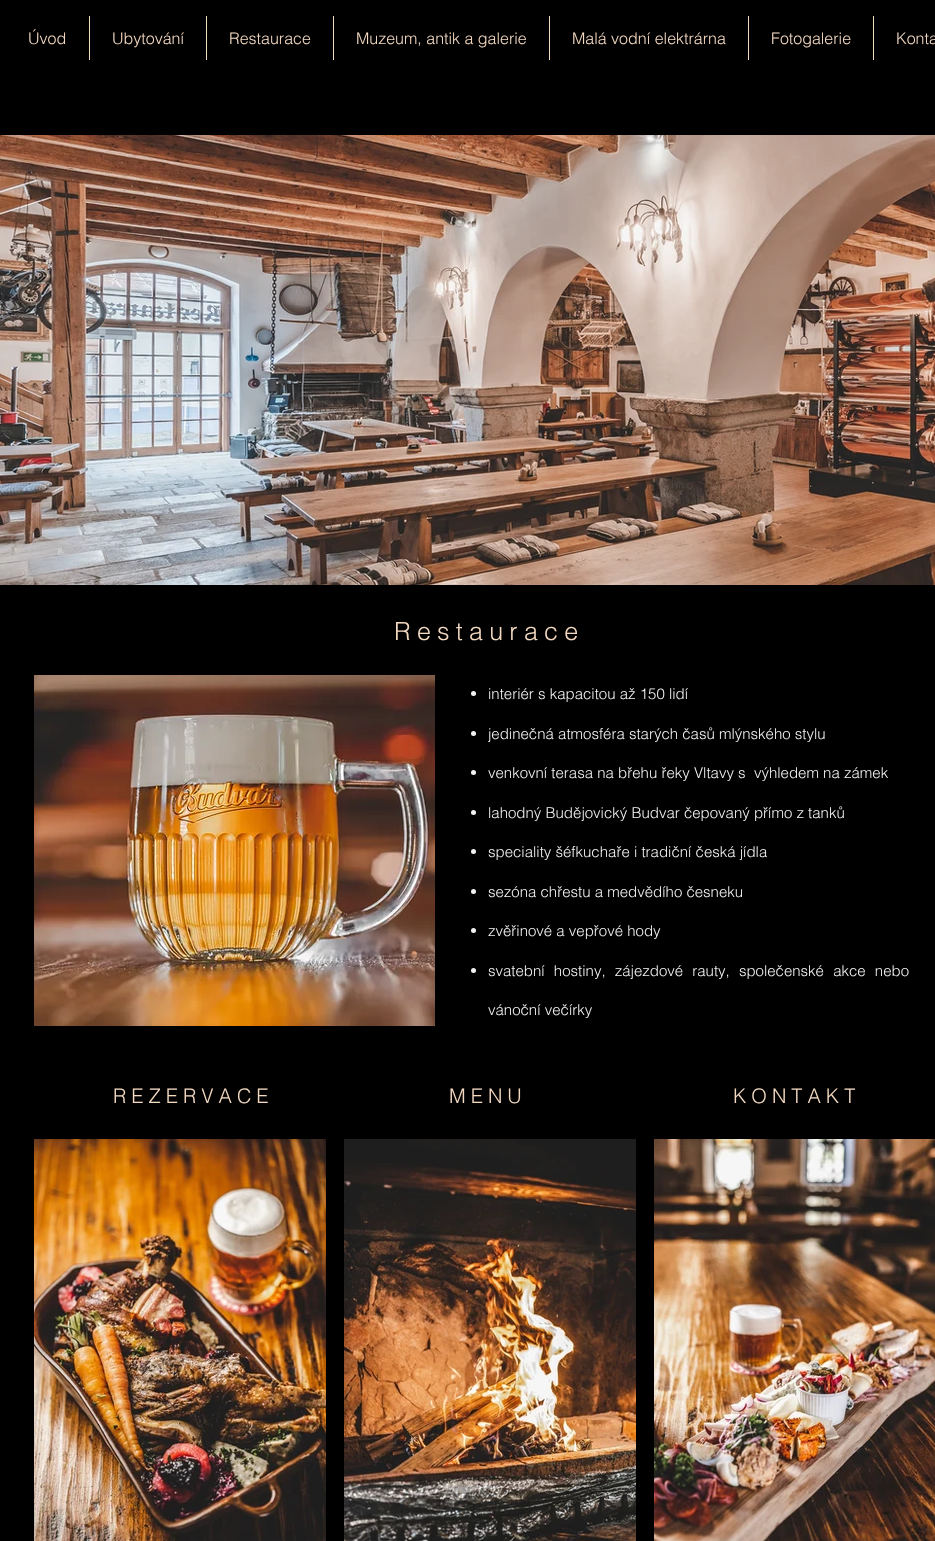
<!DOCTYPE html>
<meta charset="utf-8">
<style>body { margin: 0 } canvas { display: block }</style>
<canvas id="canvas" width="935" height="1541"></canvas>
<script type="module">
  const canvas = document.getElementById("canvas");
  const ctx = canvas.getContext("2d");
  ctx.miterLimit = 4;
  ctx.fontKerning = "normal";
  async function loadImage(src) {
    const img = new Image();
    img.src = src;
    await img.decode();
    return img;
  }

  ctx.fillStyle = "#000000";
  ctx.fillRect(0, 0, 935, 1541);
  ctx.font = "300 16px helvetica";
  ctx.fillStyle = "#f5dac2";
  ctx.fillText("Úvod", 28, 44);
  ctx.fillRect(89, 16, 1, 44);
  ctx.fillText("Ubytování", 112, 44);
  ctx.fillRect(206, 16, 1, 44);
  ctx.fillText("Restaurace", 229, 44);
  ctx.fillRect(333, 16, 1, 44);
  ctx.fillText("Muzeum, antik a galerie", 356, 44);
  ctx.fillRect(549, 16, 1, 44);
  ctx.fillText("Malá vodní elektrárna", 572, 44);
  ctx.fillRect(748, 16, 1, 44);
  ctx.fillText("Fotogalerie", 771, 44);
  ctx.fillRect(873, 16, 1, 44);
  ctx.fillText("Konta", 896, 44);
  ctx.drawImage(await loadImage("img1.png"), 0, 135, 935, 450);
  ctx.letterSpacing = "6.25px";
  ctx.font = "300 25px helvetica";
  ctx.fillText("Restaurace", 394, 640);
  ctx.drawImage(await loadImage("img2.png"), 34, 675, 401, 351);
  ctx.fillStyle = "#f3f3f3";
  ctx.beginPath();
  ctx.arc(473.5, 693.5, 2.5, 0, Math.PI * 2);
  ctx.fill();
  ctx.letterSpacing = "0px";
  ctx.font = "300 15px helvetica";
  ctx.fillText("interiér s kapacitou až 150 lidí", 488, 699);
  ctx.beginPath();
  ctx.arc(473.5, 733.5, 2.5, 0, Math.PI * 2);
  ctx.fill();
  ctx.fillText("jedinečná atmosféra starých časů mlýnského stylu", 488, 739);
  ctx.beginPath();
  ctx.arc(473.5, 772.5, 2.5, 0, Math.PI * 2);
  ctx.fill();
  ctx.fillText("venkovní terasa na břehu řeky Vltavy s  výhledem na zámek", 488, 778);
  ctx.beginPath();
  ctx.arc(473.5, 812.5, 2.5, 0, Math.PI * 2);
  ctx.fill();
  ctx.fillText("lahodný Budějovický Budvar čepovaný přímo z tanků", 488, 818);
  ctx.beginPath();
  ctx.arc(473.5, 851.5, 2.5, 0, Math.PI * 2);
  ctx.fill();
  ctx.fillText("speciality šéfkuchaře i tradiční česká jídla", 488, 857);
  ctx.beginPath();
  ctx.arc(473.5, 891.5, 2.5, 0, Math.PI * 2);
  ctx.fill();
  ctx.fillText("sezóna chřestu a medvědího česneku", 488, 897);
  ctx.beginPath();
  ctx.arc(473.5, 930.5, 2.5, 0, Math.PI * 2);
  ctx.fill();
  ctx.fillText("zvěřinové a vepřové hody", 488, 936);
  ctx.beginPath();
  ctx.arc(473.5, 970.5, 2.5, 0, Math.PI * 2);
  ctx.fill();
  ctx.wordSpacing = "5px";
  ctx.fillText("svatební hostiny, zájezdové rauty, společenské akce nebo", 488, 976);
  ctx.wordSpacing = "0px";
  ctx.fillText("vánoční večírky", 488, 1015);
  ctx.letterSpacing = "5px";
  ctx.font = "300 20px helvetica";
  ctx.fillStyle = "#f5dac2";
  ctx.fillText("REZERVACE", 113, 1103);
  ctx.fillText("MENU", 449, 1103);
  ctx.fillText("KONTAKT", 733, 1103);
  ctx.drawImage(await loadImage("img3.png"), 34, 1139, 292, 402);
  ctx.drawImage(await loadImage("img4.png"), 344, 1139, 292, 402);
  ctx.drawImage(await loadImage("img5.png"), 654, 1139, 281, 402);
</script>
